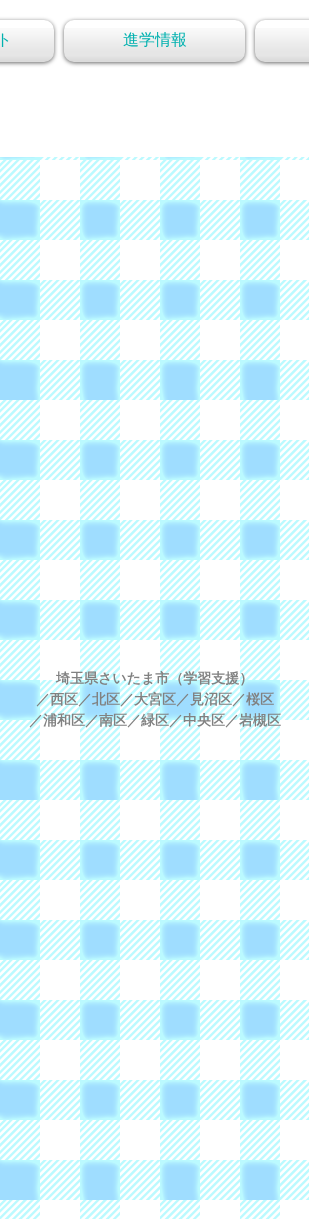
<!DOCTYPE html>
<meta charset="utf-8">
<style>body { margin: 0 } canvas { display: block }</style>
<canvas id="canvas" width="309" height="1219"></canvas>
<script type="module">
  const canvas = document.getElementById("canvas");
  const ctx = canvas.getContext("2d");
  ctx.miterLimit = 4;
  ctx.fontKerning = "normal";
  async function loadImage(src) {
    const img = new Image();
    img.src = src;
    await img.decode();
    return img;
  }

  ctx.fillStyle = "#ffffff";
  ctx.fillRect(0, 0, 309, 1219);
  ctx.fillStyle = "rgba(0, 0, 0, 0.6)";
  ctx.filter = "blur(2px)";
  ctx.beginPath();
  ctx.roundRect(-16, 21, 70, 42, 10);
  ctx.fill();
  ctx.filter = "none";
  ctx.fillStyle = "#ffffff";
  ctx.beginPath();
  ctx.roundRect(-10, 20, 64, 42, 10);
  ctx.fill();
  ctx.drawImage(await loadImage("img1.png"), 0, 28, 54, 34);
  ctx.font = "500 16px WenQuanYi Zen Hei";
  ctx.fillStyle = "#01b1af";
  ctx.fillText("ト", -4, 45);
  ctx.fillStyle = "rgba(0, 0, 0, 0.6)";
  ctx.filter = "blur(2px)";
  ctx.beginPath();
  ctx.roundRect(64, 21, 181, 42, 10);
  ctx.fill();
  ctx.filter = "none";
  ctx.fillStyle = "#ffffff";
  ctx.beginPath();
  ctx.roundRect(64, 20, 181, 42, 10);
  ctx.fill();
  ctx.drawImage(await loadImage("img2.png"), 64, 28, 181, 34);
  ctx.fillStyle = "#01b1af";
  ctx.fillText("進学情報", 123, 45);
  ctx.fillStyle = "rgba(0, 0, 0, 0.6)";
  ctx.filter = "blur(2px)";
  ctx.beginPath();
  ctx.roundRect(255, 21, 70, 42, 10);
  ctx.fill();
  ctx.filter = "none";
  ctx.fillStyle = "#ffffff";
  ctx.beginPath();
  ctx.roundRect(255, 20, 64, 42, 10);
  ctx.fill();
  ctx.drawImage(await loadImage("img3.png"), 255, 28, 54, 34);
  ctx.drawImage(await loadImage("img4.png"), 0, 157, 309, 1062);
  ctx.font = "bold 14px WenQuanYi Zen Hei";
  ctx.fillStyle = "#818181";
  ctx.fillText("埼玉県さいたま市（学習支援）", 56, 683);
  ctx.fillText("／西区／北区／大宮区／見沼区／桜区", 36, 704);
  ctx.fillText("／浦和区／南区／緑区／中央区／岩槻区", 29, 725);
</script>
